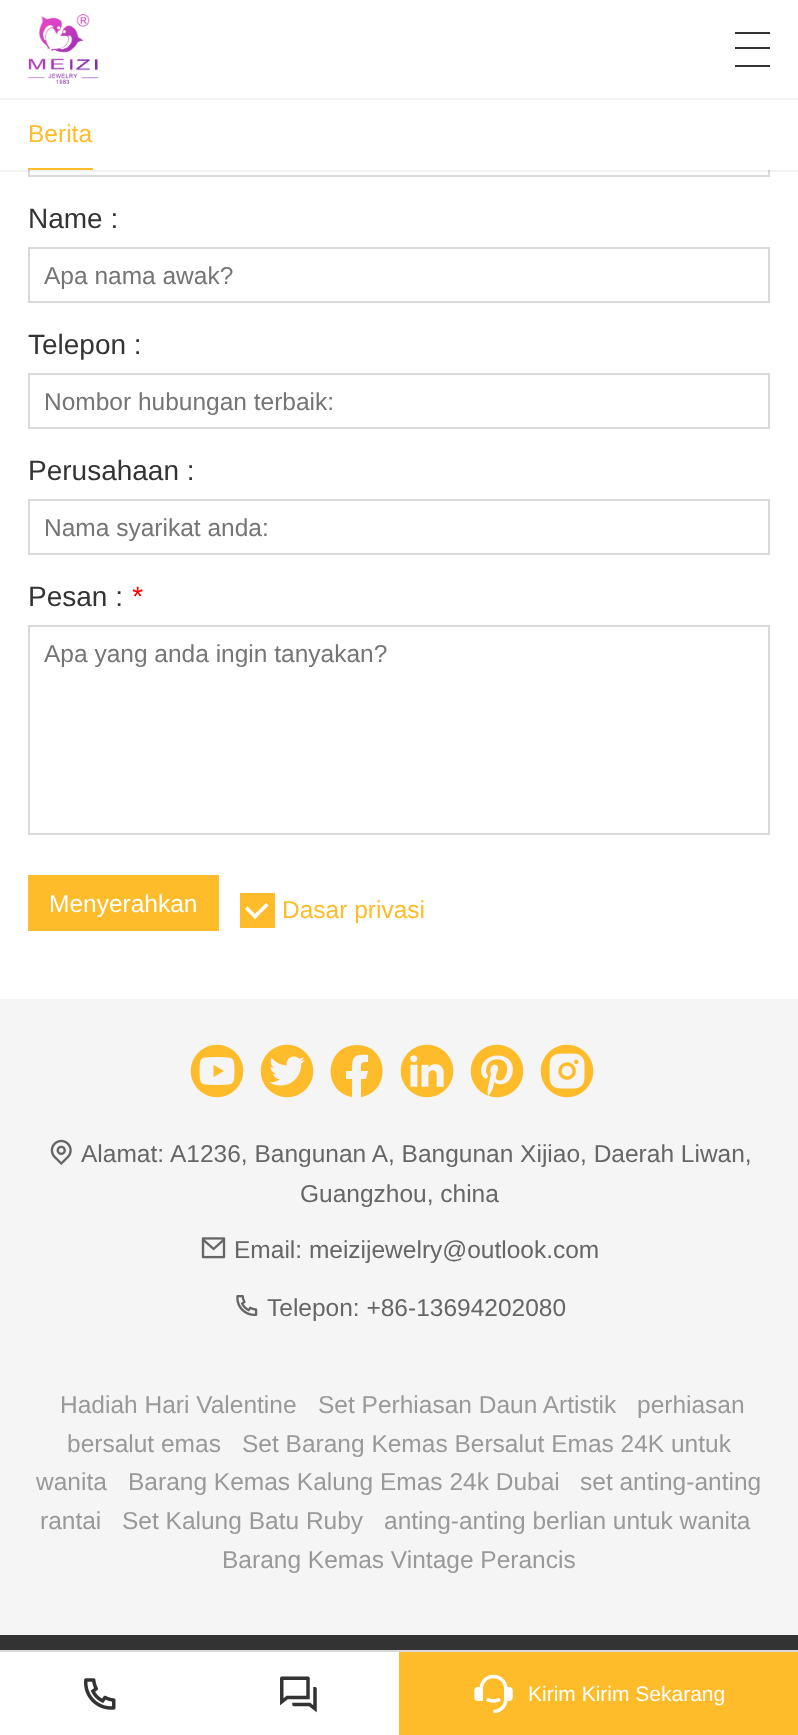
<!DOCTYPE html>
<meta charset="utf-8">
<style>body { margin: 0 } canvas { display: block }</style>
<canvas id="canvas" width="798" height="1735"></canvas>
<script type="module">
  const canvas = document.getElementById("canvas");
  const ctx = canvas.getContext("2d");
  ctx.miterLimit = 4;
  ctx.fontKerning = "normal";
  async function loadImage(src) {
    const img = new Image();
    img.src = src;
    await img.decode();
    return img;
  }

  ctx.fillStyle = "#ffffff";
  ctx.fillRect(0, 0, 798, 1735);
  ctx.fillStyle = "#f2f2f2";
  ctx.fillRect(0, 98, 798, 2);
  ctx.drawImage(await loadImage("img1.png"), 28, 14, 71, 70);
  ctx.fillStyle = "#333333";
  ctx.fillRect(735, 32, 35, 2);
  ctx.fillRect(735, 47, 35, 2);
  ctx.fillRect(735, 65, 35, 2);
  ctx.strokeStyle = "#d9d9d9";
  ctx.lineWidth = 2;
  ctx.strokeRect(29, 122, 740, 54);
  ctx.fillStyle = "rgba(0, 0, 0, 0.05)";
  ctx.fillRect(0, 170, 798, 2);
  ctx.fillStyle = "#ffffff";
  ctx.fillRect(28, 121, 742, 49);
  ctx.fillStyle = "#febc2a";
  ctx.fillRect(28, 168, 65, 2);
  ctx.font = "24.5px Liberation Sans";
  ctx.fillText("Berita", 28, 142);
  ctx.font = "28px Liberation Sans";
  ctx.fillStyle = "#333333";
  ctx.fillText("Name :", 28, 228);
  ctx.strokeRect(29, 248, 740, 54);
  ctx.font = "24.5px Liberation Sans";
  ctx.fillStyle = "#757575";
  ctx.fillText("Apa nama awak?", 44, 284);
  ctx.font = "28px Liberation Sans";
  ctx.fillStyle = "#333333";
  ctx.fillText("Telepon :", 28, 354);
  ctx.strokeRect(29, 374, 740, 54);
  ctx.font = "24.5px Liberation Sans";
  ctx.fillStyle = "#757575";
  ctx.fillText("Nombor hubungan terbaik:", 44, 410);
  ctx.font = "28px Liberation Sans";
  ctx.fillStyle = "#333333";
  ctx.fillText("Perusahaan :", 28, 480);
  ctx.strokeRect(29, 500, 740, 54);
  ctx.font = "24.5px Liberation Sans";
  ctx.fillStyle = "#757575";
  ctx.fillText("Nama syarikat anda:", 44, 536);
  ctx.font = "28px Liberation Sans";
  ctx.fillStyle = "#333333";
  ctx.fillText("Pesan :", 28, 606);
  ctx.font = "italic 28px Liberation Sans";
  ctx.fillStyle = "#ff0000";
  ctx.fillText("*", 131, 606);
  ctx.strokeRect(29, 626, 740, 208);
  ctx.font = "24.5px Liberation Sans";
  ctx.fillStyle = "#757575";
  ctx.fillText("Apa yang anda ingin tanyakan?", 44, 662);
  ctx.fillStyle = "#febc2a";
  ctx.fillRect(28, 875, 191, 56);
  ctx.fillStyle = "#ffffff";
  ctx.fillText("Menyerahkan", 49, 912);
  ctx.fillStyle = "#febc2a";
  ctx.fillRect(240, 893, 35, 35);
  ctx.fillText("Dasar privasi", 282, 918);
  ctx.fillStyle = "#ffffff";
  ctx.beginPath();
  ctx.moveTo(252.5, 916.5);
  ctx.lineTo(266, 903);
  ctx.lineTo(268.5, 905.5);
  ctx.lineTo(255, 919);
  ctx.closePath();
  ctx.fill();
  ctx.beginPath();
  ctx.moveTo(245, 909);
  ctx.lineTo(247.5, 906.5);
  ctx.lineTo(257.5, 916.5);
  ctx.lineTo(255, 919);
  ctx.closePath();
  ctx.fill();
  ctx.fillStyle = "#f5f5f5";
  ctx.fillRect(0, 999, 798, 636);
  ctx.drawImage(await loadImage("img2.png"), 190, 1044, 54, 54);
  ctx.drawImage(await loadImage("img3.png"), 260, 1044, 54, 54);
  ctx.fillStyle = "#febc2a";
  ctx.beginPath();
  ctx.moveTo(357, 1045);
  ctx.bezierCurveTo(325, 1045, 321, 1091, 352, 1097);
  ctx.lineTo(352, 1079);
  ctx.lineTo(346, 1079);
  ctx.lineTo(346, 1071);
  ctx.lineTo(352, 1071);
  ctx.bezierCurveTo(352, 1056, 354, 1054, 368, 1055);
  ctx.lineTo(368, 1062);
  ctx.bezierCurveTo(360, 1062, 361, 1063, 361, 1071);
  ctx.lineTo(368, 1071);
  ctx.lineTo(366, 1079);
  ctx.lineTo(361, 1079);
  ctx.lineTo(361, 1097);
  ctx.bezierCurveTo(392, 1092, 389, 1045, 357, 1045);
  ctx.closePath();
  ctx.fill();
  ctx.drawImage(await loadImage("img4.png"), 400, 1044, 54, 54);
  ctx.drawImage(await loadImage("img5.png"), 470, 1044, 54, 54);
  ctx.drawImage(await loadImage("img6.png"), 540, 1044, 54, 54);
  ctx.drawImage(await loadImage("img7.png"), 50, 1139, 22, 26);
  ctx.fillStyle = "#666666";
  ctx.fillText("Alamat:", 81, 1162);
  ctx.fillText("A1236, Bangunan A, Bangunan Xijiao, Daerah Liwan,", 170, 1162);
  ctx.fillText("Guangzhou, china", 300, 1202);
  ctx.drawImage(await loadImage("img8.png"), 201, 1237, 25, 22);
  ctx.fillText("Email: meizijewelry@outlook.com", 234, 1258);
  ctx.drawImage(await loadImage("img9.png"), 236, 1295, 22, 21);
  ctx.fillText("Telepon: +86-13694202080", 267, 1316);
  ctx.fillStyle = "#999999";
  ctx.fillText("Hadiah Hari Valentine", 60, 1413);
  ctx.fillText("Set Perhiasan Daun Artistik", 318, 1413);
  ctx.fillText("perhiasan", 637, 1413);
  ctx.fillText("bersalut emas", 67, 1452);
  ctx.fillText("Set Barang Kemas Bersalut Emas 24K untuk", 242, 1452);
  ctx.fillText("wanita", 36, 1490);
  ctx.fillText("Barang Kemas Kalung Emas 24k Dubai", 128, 1490);
  ctx.fillText("set anting-anting", 580, 1490);
  ctx.fillText("rantai", 40, 1529);
  ctx.fillText("Set Kalung Batu Ruby", 122, 1529);
  ctx.fillText("anting-anting berlian untuk wanita", 384, 1529);
  ctx.fillText("Barang Kemas Vintage Perancis", 222, 1568);
  ctx.fillStyle = "#333333";
  ctx.fillRect(0, 1635, 798, 15);
  ctx.strokeRect(-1, 1651, 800, 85);
  ctx.drawImage(await loadImage("img10.png"), 84, 1678, 32, 32);
  ctx.drawImage(await loadImage("img11.png"), 280, 1676, 37, 37);
  ctx.fillStyle = "#febc2a";
  ctx.fillRect(399, 1652, 399, 83);
  ctx.drawImage(await loadImage("img12.png"), 474, 1674, 39, 40);
  ctx.font = "21px Liberation Sans";
  ctx.fillStyle = "#ffffff";
  ctx.fillText("Kirim Kirim Sekarang", 528, 1701);
</script>
